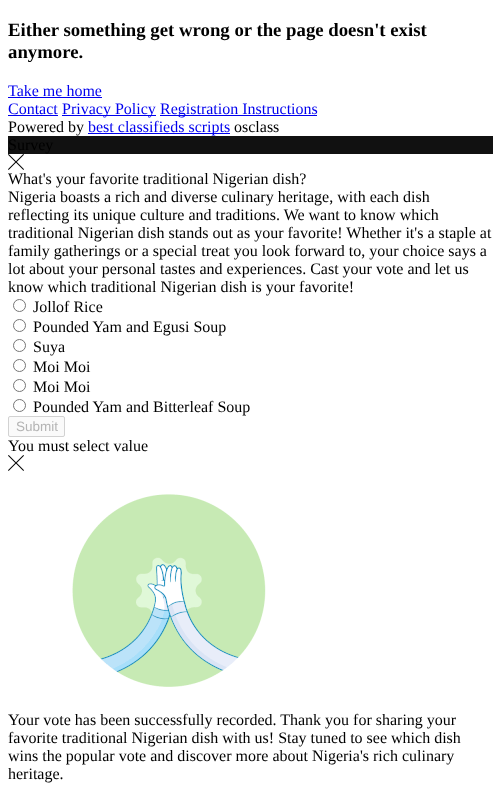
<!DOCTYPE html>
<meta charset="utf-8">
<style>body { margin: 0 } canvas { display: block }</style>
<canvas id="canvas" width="501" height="791"></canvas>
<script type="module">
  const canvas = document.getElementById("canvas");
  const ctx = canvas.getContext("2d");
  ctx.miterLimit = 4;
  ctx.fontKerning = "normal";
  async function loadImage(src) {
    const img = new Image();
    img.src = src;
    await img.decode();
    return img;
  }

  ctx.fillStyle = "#ffffff";
  ctx.fillRect(0, 0, 501, 791);
  ctx.font = "bold 18.75px Liberation Serif";
  ctx.fillStyle = "#000000";
  ctx.fillText("Either something get wrong or the page doesn't exist", 8, 36);
  ctx.fillText("anymore.", 8, 58);
  ctx.font = "16px Liberation Serif";
  ctx.fillStyle = "#0000ee";
  ctx.fillText("Take me home", 8, 96);
  ctx.fillRect(8, 97, 94, 1);
  ctx.fillText("Contact", 8, 114);
  ctx.fillRect(8, 115, 50, 1);
  ctx.fillRect(62, 115, 94, 1);
  ctx.fillText("Privacy Policy", 62, 114);
  ctx.fillRect(160, 115, 157, 1);
  ctx.fillText("Registration Instructions", 160, 114);
  ctx.fillStyle = "#000000";
  ctx.fillText("Powered by", 8, 132);
  ctx.fillStyle = "#0000ee";
  ctx.fillRect(88, 133, 142, 1);
  ctx.fillText("best classifieds scripts", 88, 132);
  ctx.fillStyle = "#000000";
  ctx.fillText("osclass", 234, 132);
  ctx.fillStyle = "#111111";
  ctx.fillRect(8, 136, 485, 18);
  ctx.fillStyle = "#000000";
  ctx.fillText("Survey", 8, 150);
  ctx.drawImage(await loadImage("img1.png"), 8, 154, 16, 16);
  ctx.fillText("What's your favorite traditional Nigerian dish?", 8, 184);
  ctx.fillText("Nigeria boasts a rich and diverse culinary heritage, with each dish", 8, 202);
  ctx.fillText("reflecting its unique culture and traditions. We want to know which", 8, 220);
  ctx.fillText("traditional Nigerian dish stands out as your favorite! Whether it's a staple at", 8, 238);
  ctx.fillText("family gatherings or a special treat you look forward to, your choice says a", 8, 256);
  ctx.fillText("lot about your personal tastes and experiences. Cast your vote and let us", 8, 274);
  ctx.fillText("know which traditional Nigerian dish is your favorite!", 8, 292);
  ctx.beginPath();
  ctx.arc(19.5, 305.5, 6, 0, Math.PI * 2);
  ctx.strokeStyle = "#767676";
  ctx.stroke();
  ctx.fillText("Jollof Rice", 33, 312);
  ctx.beginPath();
  ctx.arc(19.5, 325.5, 6, 0, Math.PI * 2);
  ctx.stroke();
  ctx.fillText("Pounded Yam and Egusi Soup", 33, 332);
  ctx.beginPath();
  ctx.arc(19.5, 345.5, 6, 0, Math.PI * 2);
  ctx.stroke();
  ctx.fillText("Suya", 33, 352);
  ctx.beginPath();
  ctx.arc(19.5, 365.5, 6, 0, Math.PI * 2);
  ctx.stroke();
  ctx.fillText("Moi Moi", 33, 372);
  ctx.beginPath();
  ctx.arc(19.5, 385.5, 6, 0, Math.PI * 2);
  ctx.stroke();
  ctx.fillText("Moi Moi", 33, 392);
  ctx.beginPath();
  ctx.arc(19.5, 405.5, 6, 0, Math.PI * 2);
  ctx.stroke();
  ctx.fillText("Pounded Yam and Bitterleaf Soup", 33, 412);
  ctx.fillStyle = "#fafafa";
  ctx.beginPath();
  ctx.roundRect(8.5, 416.5, 56, 20, 1.5);
  ctx.fill();
  ctx.strokeStyle = "#d2d2d2";
  ctx.stroke();
  ctx.font = "13.5px Liberation Sans";
  ctx.fillStyle = "#b4b4b4";
  ctx.fillText("Submit", 16, 431);
  ctx.font = "16px Liberation Serif";
  ctx.fillStyle = "#000000";
  ctx.fillText("You must select value", 8, 451);
  ctx.drawImage(await loadImage("img1.png"), 8, 455, 16, 16);
  ctx.drawImage(await loadImage("img2.png"), 72, 494, 194, 193);
  ctx.fillText("Your vote has been successfully recorded. Thank you for sharing your", 8, 725);
  ctx.fillText("favorite traditional Nigerian dish with us! Stay tuned to see which dish", 8, 743);
  ctx.fillText("wins the popular vote and discover more about Nigeria's rich culinary", 8, 761);
  ctx.fillText("heritage.", 8, 779);
</script>
